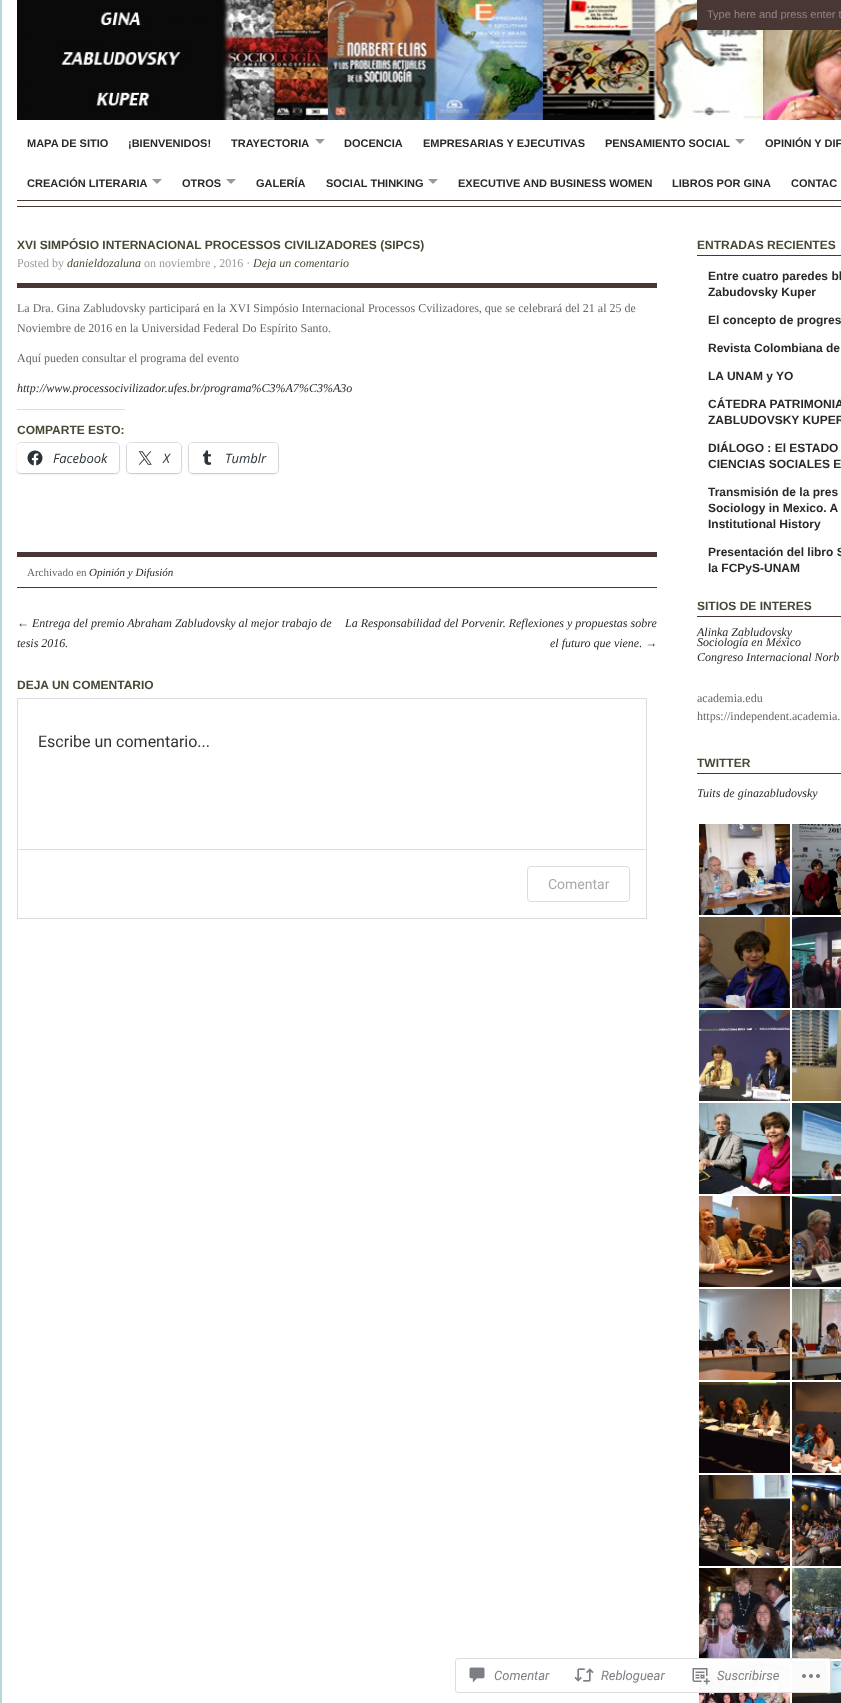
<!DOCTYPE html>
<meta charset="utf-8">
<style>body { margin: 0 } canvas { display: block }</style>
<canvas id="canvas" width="841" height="1703"></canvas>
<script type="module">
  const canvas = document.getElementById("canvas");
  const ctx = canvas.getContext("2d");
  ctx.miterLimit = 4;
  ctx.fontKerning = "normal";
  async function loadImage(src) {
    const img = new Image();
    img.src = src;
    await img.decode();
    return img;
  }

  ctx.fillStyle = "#b9d7d9";
  ctx.fillRect(0, 0, 841, 1703);
  ctx.fillStyle = "#ffffff";
  ctx.fillRect(2, 0, 839, 1703);
  ctx.drawImage(await loadImage("img1.png"), 17, 0, 824, 120);
  ctx.fillStyle = "#493736";
  ctx.fillRect(697, 0, 144, 30);
  ctx.save();
  ctx.beginPath();
  ctx.rect(707, 8, 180, 12);
  ctx.clip();
  ctx.font = "11px Liberation Sans";
  ctx.fillStyle = "#928786";
  ctx.fillText("Type here and press enter t", 707, 18);
  ctx.restore();
  ctx.fillRect(17, 200, 824, 1);
  ctx.font = "bold 11px Liberation Sans";
  ctx.fillStyle = "#2a2829";
  ctx.fillText("MAPA DE SITIO", 27, 147);
  ctx.fillText("¡BIENVENIDOS!", 128, 147);
  ctx.fillText("TRAYECTORIA", 231, 147);
  ctx.fillStyle = "#999999";
  ctx.beginPath();
  ctx.moveTo(315, 139);
  ctx.lineTo(325, 139);
  ctx.lineTo(320, 144);
  ctx.closePath();
  ctx.fill();
  ctx.fillStyle = "#2a2829";
  ctx.fillText("DOCENCIA", 344, 147);
  ctx.fillText("EMPRESARIAS Y EJECUTIVAS", 423, 147);
  ctx.fillText("PENSAMIENTO SOCIAL", 605, 147);
  ctx.fillStyle = "#999999";
  ctx.beginPath();
  ctx.moveTo(735, 139);
  ctx.lineTo(745, 139);
  ctx.lineTo(740, 144);
  ctx.closePath();
  ctx.fill();
  ctx.fillStyle = "#2a2829";
  ctx.fillText("OPINIÓN Y DIF", 765, 147);
  ctx.fillText("CREACIÓN LITERARIA", 27, 187);
  ctx.fillStyle = "#999999";
  ctx.beginPath();
  ctx.moveTo(152, 179);
  ctx.lineTo(162, 179);
  ctx.lineTo(157, 184);
  ctx.closePath();
  ctx.fill();
  ctx.fillStyle = "#2a2829";
  ctx.fillText("OTROS", 182, 187);
  ctx.fillStyle = "#999999";
  ctx.beginPath();
  ctx.moveTo(226, 179);
  ctx.lineTo(236, 179);
  ctx.lineTo(231, 184);
  ctx.closePath();
  ctx.fill();
  ctx.fillStyle = "#2a2829";
  ctx.fillText("GALERÍA", 256, 187);
  ctx.fillText("SOCIAL THINKING", 326, 187);
  ctx.fillStyle = "#999999";
  ctx.beginPath();
  ctx.moveTo(428, 179);
  ctx.lineTo(438, 179);
  ctx.lineTo(433, 184);
  ctx.closePath();
  ctx.fill();
  ctx.fillStyle = "#2a2829";
  ctx.fillText("EXECUTIVE AND BUSINESS WOMEN", 458, 187);
  ctx.fillText("LIBROS POR GINA", 672, 187);
  ctx.fillText("CONTAC", 791, 187);
  ctx.fillStyle = "#493736";
  ctx.fillRect(17, 206, 824, 1);
  ctx.fillRect(17, 283, 640, 5);
  ctx.font = "bold 12px Liberation Sans";
  ctx.fillStyle = "#494836";
  ctx.fillText("XVI SIMPÓSIO INTERNACIONAL PROCESSOS CIVILIZADORES (SIPCS)", 17, 249);
  ctx.font = "12px Liberation Serif";
  ctx.fillStyle = "#999999";
  ctx.fillText("Posted by", 17, 267);
  ctx.font = "italic 12px Liberation Serif";
  ctx.fillStyle = "#494836";
  ctx.fillText("danieldozaluna", 67, 267);
  ctx.font = "12px Liberation Serif";
  ctx.fillStyle = "#999999";
  ctx.fillText("on noviembre , 2016 ·", 144, 267);
  ctx.font = "italic 12px Liberation Serif";
  ctx.fillStyle = "#494836";
  ctx.fillText("Deja un comentario", 253, 267);
  ctx.font = "12px Liberation Serif";
  ctx.fillStyle = "#666666";
  ctx.fillText("La Dra. Gina Zabludovsky participará en la XVI Simpósio Internacional Processos Cvilizadores, que se celebrará del 21 al 25 de", 17, 312);
  ctx.fillText("Noviembre de 2016 en la Universidad Federal Do Espírito Santo.", 17, 332);
  ctx.fillText("Aquí pueden consultar el programa del evento", 17, 362);
  ctx.font = "italic 12px Liberation Serif";
  ctx.fillStyle = "#2a2829";
  ctx.fillText("http://www.processocivilizador.ufes.br/programa%C3%A7%C3%A3o", 17, 392);
  ctx.fillStyle = "#dcdcde";
  ctx.fillRect(17, 409, 108, 1);
  ctx.font = "bold 12px Liberation Sans";
  ctx.fillStyle = "#494836";
  ctx.fillText("COMPARTE ESTO:", 17, 434);
  ctx.save();
  ctx.beginPath();
  ctx.rect(17, 237, 650, 682);
  ctx.clip();
  ctx.beginPath();
  ctx.roundRect(16.5, 442.5, 103, 31, 4.5);
  ctx.strokeStyle = "#e0e0e0";
  ctx.stroke();
  ctx.restore();
  ctx.fillStyle = "rgba(0, 0, 0, 0.12)";
  ctx.filter = "blur(1px)";
  ctx.beginPath();
  ctx.roundRect(17, 444, 102, 30, 4);
  ctx.fill();
  ctx.filter = "none";
  ctx.fillStyle = "#ffffff";
  ctx.beginPath();
  ctx.roundRect(17, 443, 102, 30, 4);
  ctx.fill();
  ctx.drawImage(await loadImage("img2.png"), 27, 450, 16, 16);
  ctx.font = "italic 13px Open Sans";
  ctx.fillStyle = "#2c3338";
  ctx.fillText("Facebook", 53, 463);
  ctx.beginPath();
  ctx.roundRect(126.5, 442.5, 55, 31, 4.5);
  ctx.strokeStyle = "#e0e0e0";
  ctx.stroke();
  ctx.fillStyle = "rgba(0, 0, 0, 0.12)";
  ctx.filter = "blur(1px)";
  ctx.beginPath();
  ctx.roundRect(127, 444, 54, 30, 4);
  ctx.fill();
  ctx.filter = "none";
  ctx.fillStyle = "#ffffff";
  ctx.beginPath();
  ctx.roundRect(127, 443, 54, 30, 4);
  ctx.fill();
  ctx.drawImage(await loadImage("img3.png"), 138, 451, 14, 14);
  ctx.fillStyle = "#2c3338";
  ctx.fillText("X", 163, 463);
  ctx.beginPath();
  ctx.roundRect(188.5, 442.5, 90, 31, 4.5);
  ctx.stroke();
  ctx.fillStyle = "rgba(0, 0, 0, 0.12)";
  ctx.filter = "blur(1px)";
  ctx.beginPath();
  ctx.roundRect(189, 444, 89, 30, 4);
  ctx.fill();
  ctx.filter = "none";
  ctx.fillStyle = "#ffffff";
  ctx.beginPath();
  ctx.roundRect(189, 443, 89, 30, 4);
  ctx.fill();
  ctx.drawImage(await loadImage("img4.png"), 202, 450, 10, 15);
  ctx.fillStyle = "#2c3338";
  ctx.fillText("Tumblr", 225, 463);
  ctx.fillStyle = "#493736";
  ctx.fillRect(17, 552, 640, 5);
  ctx.fillRect(17, 587, 640, 1);
  ctx.font = "11px Liberation Serif";
  ctx.fillStyle = "#666666";
  ctx.fillText("Archivado en", 27, 576);
  ctx.font = "italic 11px Liberation Serif";
  ctx.fillStyle = "#2a2829";
  ctx.fillText("Opinión y Difusión", 89, 576);
  ctx.font = "italic 12px Liberation Serif";
  ctx.fillText("← Entrega del premio Abraham Zabludovsky al mejor trabajo de", 17, 627);
  ctx.fillText("tesis 2016.", 17, 647);
  ctx.fillText("La Responsabilidad del Porvenir. Reflexiones y propuestas sobre", 345, 627);
  ctx.fillText("el futuro que viene. →", 550, 647);
  ctx.font = "bold 12px Liberation Sans";
  ctx.fillStyle = "#494836";
  ctx.fillText("DEJA UN COMENTARIO", 17, 689);
  ctx.strokeStyle = "#dcdcde";
  ctx.strokeRect(17.5, 698.5, 629, 220);
  ctx.font = "16px Roboto";
  ctx.fillStyle = "#333333";
  ctx.fillText("Escribe un comentario...", 38, 747);
  ctx.fillStyle = "#dcdcde";
  ctx.fillRect(18, 849, 628, 1);
  ctx.beginPath();
  ctx.roundRect(527.5, 866.5, 102, 35, 3.5);
  ctx.stroke();
  ctx.font = "14px Roboto";
  ctx.fillStyle = "#a7aaad";
  ctx.fillText("Comentar", 548, 889);
  ctx.fillStyle = "#493736";
  ctx.fillRect(697, 255, 144, 1);
  ctx.font = "bold 12px Liberation Sans";
  ctx.fillStyle = "#494836";
  ctx.fillText("ENTRADAS RECIENTES", 697, 249);
  ctx.fillStyle = "#2a2829";
  ctx.fillText("Entre cuatro paredes bl", 708, 280);
  ctx.fillText("Zabudovsky Kuper", 708, 296);
  ctx.fillText("El concepto de progres", 708, 324);
  ctx.fillText("Revista Colombiana de", 708, 352);
  ctx.fillText("LA UNAM y YO", 708, 380);
  ctx.fillText("CÁTEDRA PATRIMONIA", 708, 408);
  ctx.fillText("ZABLUDOVSKY KUPER", 708, 424);
  ctx.fillText("DIÁLOGO : El ESTADO", 708, 452);
  ctx.fillText("CIENCIAS SOCIALES E", 708, 468);
  ctx.fillText("Transmisión de la pres", 708, 496);
  ctx.fillText("Sociology in Mexico. A", 708, 512);
  ctx.fillText("Institutional History", 708, 528);
  ctx.fillText("Presentación del libro S", 708, 556);
  ctx.fillText("la FCPyS-UNAM", 708, 572);
  ctx.fillStyle = "#493736";
  ctx.fillRect(697, 616, 144, 1);
  ctx.fillStyle = "#494836";
  ctx.fillText("SITIOS DE INTERES", 697, 610);
  ctx.font = "italic 12px Liberation Serif";
  ctx.fillStyle = "#2a2829";
  ctx.fillText("Alinka Zabludovsky", 697, 636);
  ctx.fillText("Sociología en México", 697, 646);
  ctx.fillText("Congreso Internacional Norb", 697, 661);
  ctx.font = "12px Liberation Serif";
  ctx.fillStyle = "#666666";
  ctx.fillText("academia.edu", 697, 702);
  ctx.fillText("https://independent.academia.", 697, 720);
  ctx.fillStyle = "#493736";
  ctx.fillRect(697, 773, 144, 1);
  ctx.font = "bold 12px Liberation Sans";
  ctx.fillStyle = "#494836";
  ctx.fillText("TWITTER", 697, 767);
  ctx.font = "italic 12px Liberation Serif";
  ctx.fillStyle = "#2a2829";
  ctx.fillText("Tuits de ginazabludovsky", 697, 797);
  ctx.drawImage(await loadImage("img5.png"), 699, 824, 91, 91);
  ctx.drawImage(await loadImage("img6.png"), 792, 824, 49, 91);
  ctx.drawImage(await loadImage("img7.png"), 699, 917, 91, 91);
  ctx.drawImage(await loadImage("img8.png"), 792, 917, 49, 91);
  ctx.drawImage(await loadImage("img9.png"), 699, 1010, 91, 91);
  ctx.drawImage(await loadImage("img10.png"), 792, 1010, 49, 91);
  ctx.drawImage(await loadImage("img11.png"), 699, 1103, 91, 91);
  ctx.drawImage(await loadImage("img12.png"), 792, 1103, 49, 91);
  ctx.drawImage(await loadImage("img13.png"), 699, 1196, 91, 91);
  ctx.drawImage(await loadImage("img14.png"), 792, 1196, 49, 91);
  ctx.drawImage(await loadImage("img15.png"), 699, 1289, 91, 91);
  ctx.drawImage(await loadImage("img16.png"), 792, 1289, 49, 91);
  ctx.drawImage(await loadImage("img17.png"), 699, 1382, 91, 91);
  ctx.drawImage(await loadImage("img18.png"), 792, 1382, 49, 91);
  ctx.drawImage(await loadImage("img19.png"), 699, 1475, 91, 91);
  ctx.drawImage(await loadImage("img20.png"), 792, 1475, 49, 91);
  ctx.drawImage(await loadImage("img21.png"), 699, 1568, 91, 91);
  ctx.drawImage(await loadImage("img22.png"), 792, 1568, 49, 91);
  ctx.drawImage(await loadImage("img23.png"), 699, 1661, 91, 42);
  ctx.drawImage(await loadImage("img24.png"), 792, 1661, 49, 42);
  ctx.fillStyle = "rgba(255, 255, 255, 0.98)";
  ctx.beginPath();
  ctx.roundRect(455, 1658, 376, 35, 3);
  ctx.fill();
  ctx.beginPath();
  ctx.roundRect(455.5, 1658.5, 375, 34, 2.5);
  ctx.strokeStyle = "rgba(220, 220, 222, 0.98)";
  ctx.stroke();
  ctx.drawImage(await loadImage("img25.png"), 469, 1667, 16, 16);
  ctx.font = "italic 13px Roboto";
  ctx.fillStyle = "#7b7f85";
  ctx.fillText("Comentar", 494, 1680);
  ctx.drawImage(await loadImage("img26.png"), 574, 1668, 20, 14);
  ctx.fillText("Rebloguear", 601, 1680);
  ctx.drawImage(await loadImage("img27.png"), 692, 1668, 18, 17);
  ctx.fillText("Suscribirse", 717, 1680);
  ctx.drawImage(await loadImage("img28.png"), 802, 1674, 18, 4);
</script>
